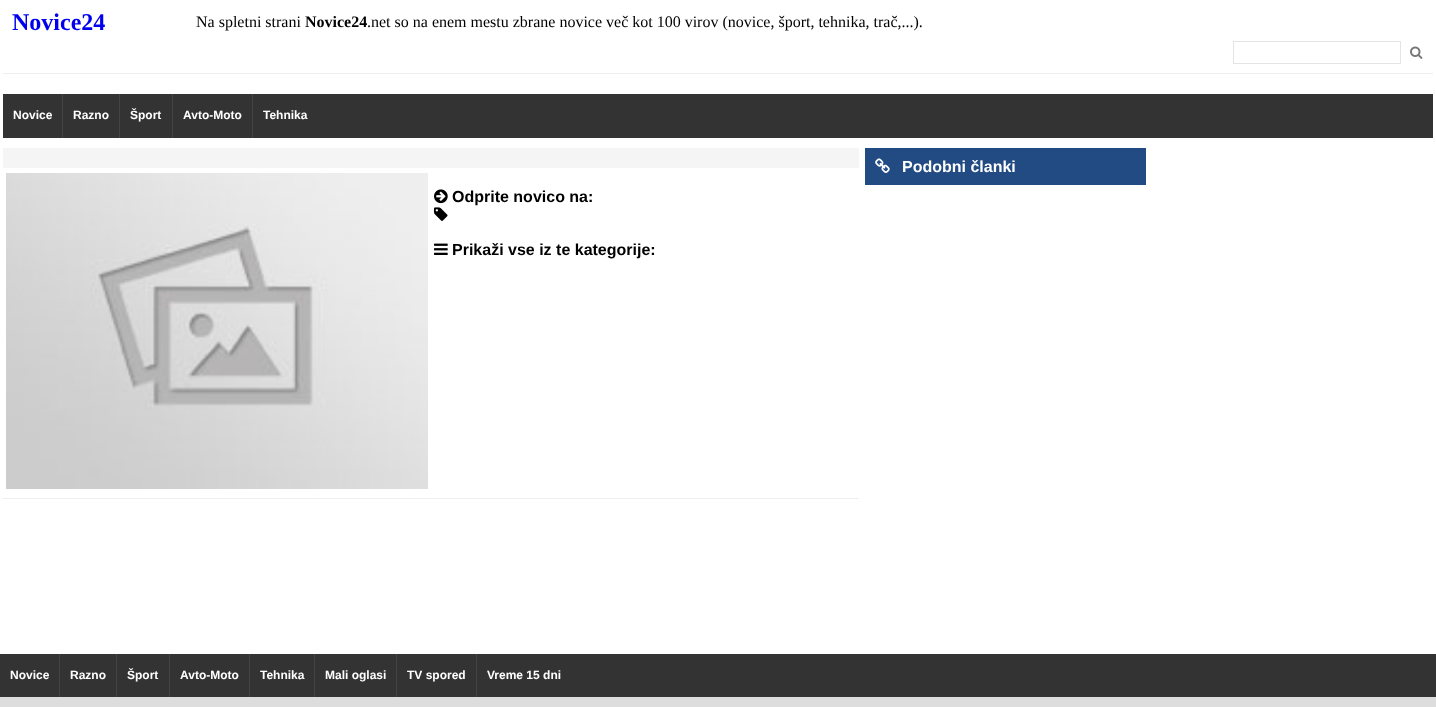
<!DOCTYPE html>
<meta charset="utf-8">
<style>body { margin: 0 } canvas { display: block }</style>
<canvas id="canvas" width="1436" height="707"></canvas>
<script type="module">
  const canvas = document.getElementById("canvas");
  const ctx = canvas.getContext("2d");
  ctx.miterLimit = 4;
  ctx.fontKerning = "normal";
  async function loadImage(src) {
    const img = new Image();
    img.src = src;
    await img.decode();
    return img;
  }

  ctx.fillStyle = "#ffffff";
  ctx.fillRect(0, 0, 1436, 707);
  ctx.fillStyle = "#eeeeee";
  ctx.fillRect(3, 73, 1430, 1);
  ctx.font = "bold 24px Liberation Serif";
  ctx.fillStyle = "#0000ee";
  ctx.fillText("Novice24", 12, 30);
  ctx.font = "16px Liberation Serif";
  ctx.fillStyle = "#000000";
  ctx.fillText("Na spletni strani", 196, 27);
  ctx.font = "bold 16px Liberation Serif";
  ctx.fillText("Novice24", 305, 27);
  ctx.font = "16px Liberation Serif";
  ctx.fillText(".net so na enem mestu zbrane novice več kot 100 virov (novice, šport, tehnika, trač,...).", 367, 27);
  ctx.strokeStyle = "#e4e4e4";
  ctx.strokeRect(1233.5, 41.5, 167, 22);
  ctx.drawImage(await loadImage("img1.png"), 1410, 46, 13, 13);
  ctx.fillStyle = "#333333";
  ctx.fillRect(3, 94, 1430, 44);
  ctx.font = "bold 12px Liberation Sans";
  ctx.fillStyle = "#ffffff";
  ctx.fillText("Novice", 13, 119);
  ctx.fillStyle = "#444444";
  ctx.fillRect(62, 94, 1, 44);
  ctx.fillStyle = "#ffffff";
  ctx.fillText("Razno", 73, 119);
  ctx.fillStyle = "#444444";
  ctx.fillRect(119, 94, 1, 44);
  ctx.fillStyle = "#ffffff";
  ctx.fillText("Šport", 130, 119);
  ctx.fillStyle = "#444444";
  ctx.fillRect(172, 94, 1, 44);
  ctx.fillStyle = "#ffffff";
  ctx.fillText("Avto-Moto", 183, 119);
  ctx.fillStyle = "#444444";
  ctx.fillRect(252, 94, 1, 44);
  ctx.fillStyle = "#ffffff";
  ctx.fillText("Tehnika", 263, 119);
  ctx.fillStyle = "#224a83";
  ctx.fillRect(865, 148, 281, 37);
  ctx.drawImage(await loadImage("img2.png"), 875, 158, 15, 15);
  ctx.font = "bold 16px Liberation Sans";
  ctx.fillStyle = "#ffffff";
  ctx.fillText("Podobni članki", 902, 172);
  ctx.fillStyle = "#f5f5f5";
  ctx.fillRect(3, 148, 856, 20);
  ctx.fillStyle = "#eeeeee";
  ctx.fillRect(3, 498, 856, 1);
  ctx.drawImage(await loadImage("img3.png"), 6, 173, 422, 316);
  ctx.drawImage(await loadImage("img4.png"), 434, 189, 14, 15);
  ctx.fillStyle = "#000000";
  ctx.fillText("Odprite novico na:", 452, 202);
  ctx.drawImage(await loadImage("img5.png"), 434, 207, 14, 14);
  ctx.drawImage(await loadImage("img6.png"), 434, 243, 14, 12);
  ctx.fillText("Prikaži vse iz te kategorije:", 452, 255);
  ctx.fillStyle = "#dddddd";
  ctx.fillRect(0, 697, 1436, 10);
  ctx.fillStyle = "#333333";
  ctx.fillRect(0, 654, 1436, 43);
  ctx.font = "bold 12px Liberation Sans";
  ctx.fillStyle = "#ffffff";
  ctx.fillText("Novice", 10, 679);
  ctx.fillStyle = "#444444";
  ctx.fillRect(59, 654, 1, 43);
  ctx.fillStyle = "#ffffff";
  ctx.fillText("Razno", 70, 679);
  ctx.fillStyle = "#444444";
  ctx.fillRect(116, 654, 1, 43);
  ctx.fillStyle = "#ffffff";
  ctx.fillText("Šport", 127, 679);
  ctx.fillStyle = "#444444";
  ctx.fillRect(169, 654, 1, 43);
  ctx.fillStyle = "#ffffff";
  ctx.fillText("Avto-Moto", 180, 679);
  ctx.fillStyle = "#444444";
  ctx.fillRect(249, 654, 1, 43);
  ctx.fillStyle = "#ffffff";
  ctx.fillText("Tehnika", 260, 679);
  ctx.fillStyle = "#444444";
  ctx.fillRect(314, 654, 1, 43);
  ctx.fillStyle = "#ffffff";
  ctx.fillText("Mali oglasi", 325, 679);
  ctx.fillStyle = "#444444";
  ctx.fillRect(396, 654, 1, 43);
  ctx.fillStyle = "#ffffff";
  ctx.fillText("TV spored", 407, 679);
  ctx.fillStyle = "#444444";
  ctx.fillRect(476, 654, 1, 43);
  ctx.fillStyle = "#ffffff";
  ctx.fillText("Vreme 15 dni", 487, 679);
</script>
